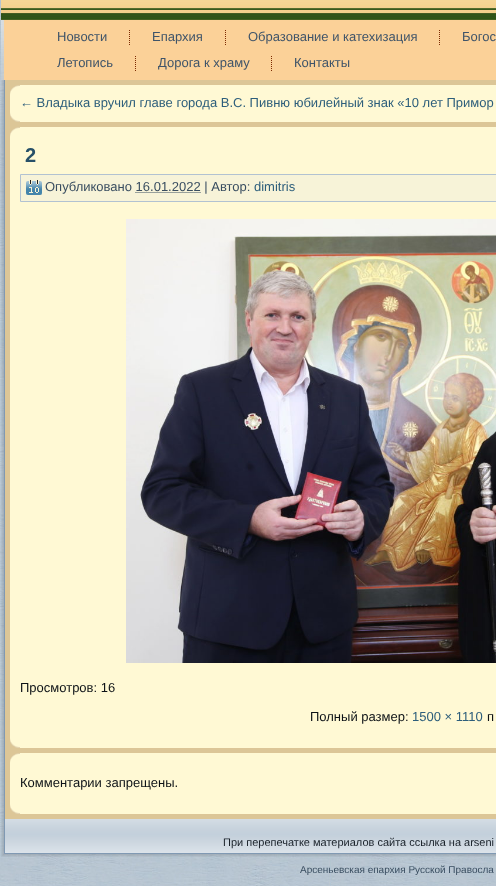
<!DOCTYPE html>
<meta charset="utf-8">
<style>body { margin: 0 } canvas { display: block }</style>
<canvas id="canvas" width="496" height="886"></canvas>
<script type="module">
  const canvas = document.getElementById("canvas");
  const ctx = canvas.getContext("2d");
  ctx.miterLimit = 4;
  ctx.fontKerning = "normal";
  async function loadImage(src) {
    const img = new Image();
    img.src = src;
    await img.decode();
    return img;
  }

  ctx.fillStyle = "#ffffff";
  ctx.fillRect(0, 0, 496, 886);
  ctx.drawImage(await loadImage("img1.png"), 0, 0, 496, 886);
  ctx.drawImage(await loadImage("img2.png"), 1, 20, 3, 78);
  ctx.drawImage(await loadImage("img3.png"), 1, 0, 495, 20);
  ctx.drawImage(await loadImage("img4.png"), 2, 20, 494, 60);
  ctx.font = "13px Liberation Sans";
  ctx.fillStyle = "#3f5469";
  ctx.fillText("Новости", 57, 41);
  ctx.drawImage(await loadImage("img5.png"), 129, 30, 1, 15);
  ctx.fillText("Епархия", 152, 41);
  ctx.drawImage(await loadImage("img5.png"), 225, 30, 1, 15);
  ctx.fillText("Образование и катехизация", 248, 41);
  ctx.drawImage(await loadImage("img5.png"), 439, 30, 1, 15);
  ctx.fillText("Богос", 462, 41);
  ctx.fillText("Летопись", 57, 67);
  ctx.drawImage(await loadImage("img5.png"), 135, 56, 1, 15);
  ctx.fillText("Дорога к храму", 158, 67);
  ctx.drawImage(await loadImage("img5.png"), 271, 56, 1, 15);
  ctx.fillText("Контакты", 294, 67);
  ctx.drawImage(await loadImage("img6.png"), 1, 80, 4, 13);
  ctx.drawImage(await loadImage("img7.png"), 1, 93, 4, 751);
  ctx.fillStyle = "#dcc697";
  ctx.fillRect(5, 80, 491, 739);
  ctx.drawImage(await loadImage("img8.png"), 10, 85, 10, 10);
  ctx.fillStyle = "#fff9d4";
  ctx.fillRect(20, 85, 476, 10);
  ctx.fillRect(10, 95, 486, 17);
  ctx.fillStyle = "#2d5e7b";
  ctx.fillText("← Владыка вручил главе города В.С. Пивню юбилейный знак «10 лет Примор", 20, 107);
  ctx.drawImage(await loadImage("img9.png"), 10, 112, 10, 10);
  ctx.fillStyle = "#fff9d4";
  ctx.fillRect(20, 112, 476, 10);
  ctx.drawImage(await loadImage("img8.png"), 10, 127, 10, 10);
  ctx.fillRect(20, 127, 476, 10);
  ctx.fillRect(10, 137, 486, 601);
  ctx.font = "bold 20px Liberation Sans";
  ctx.fillStyle = "#275068";
  ctx.fillText("2", 25, 162);
  ctx.fillStyle = "#f7f3d8";
  ctx.beginPath();
  ctx.rect(20.5, 174.5, 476, 27);
  ctx.fill();
  ctx.strokeStyle = "#b2c2d1";
  ctx.stroke();
  ctx.drawImage(await loadImage("img10.png"), 26, 180, 16, 15);
  ctx.font = "13px Liberation Sans";
  ctx.fillStyle = "#394d60";
  ctx.fillText("Опубликовано 16.01.2022 | Автор:", 45, 191);
  ctx.fillStyle = "#2d5e7b";
  ctx.fillText("dimitris", 254, 191);
  ctx.beginPath();
  ctx.moveTo(135.5, 192.5);
  ctx.lineTo(200.5, 192.5);
  ctx.strokeStyle = "#394d60";
  ctx.setLineDash([1, 1]);
  ctx.stroke();
  ctx.drawImage(await loadImage("img11.png"), 126, 219, 370, 444);
  ctx.fillStyle = "#0d1216";
  ctx.fillText("Просмотров: 16", 20, 692);
  ctx.fillText("Полный размер:", 310, 721);
  ctx.fillStyle = "#2d5e7b";
  ctx.fillText("1500 × 1110", 412, 721);
  ctx.fillStyle = "#0d1216";
  ctx.fillText("п", 487, 721);
  ctx.drawImage(await loadImage("img9.png"), 10, 738, 10, 10);
  ctx.fillStyle = "#fff9d4";
  ctx.fillRect(20, 738, 476, 10);
  ctx.drawImage(await loadImage("img8.png"), 10, 753, 10, 10);
  ctx.fillRect(20, 753, 476, 10);
  ctx.fillRect(10, 763, 486, 41);
  ctx.fillStyle = "#0d1216";
  ctx.fillText("Комментарии запрещены.", 20, 787);
  ctx.drawImage(await loadImage("img9.png"), 10, 804, 10, 10);
  ctx.fillStyle = "#fff9d4";
  ctx.fillRect(20, 804, 476, 10);
  ctx.drawImage(await loadImage("img13.png"), 1, 844, 13, 13);
  ctx.drawImage(await loadImage("img12.png"), 5, 819, 491, 34);
  ctx.font = "11px Liberation Sans";
  ctx.fillStyle = "#192129";
  ctx.fillText("При перепечатке материалов сайта ссылка на arseni", 223, 846);
  ctx.drawImage(await loadImage("img14.png"), 14, 853, 482, 4);
  ctx.font = "10px Liberation Sans";
  ctx.fillStyle = "#394d60";
  ctx.fillText("Арсеньевская епархия Русской Правосла", 300, 873);
</script>
